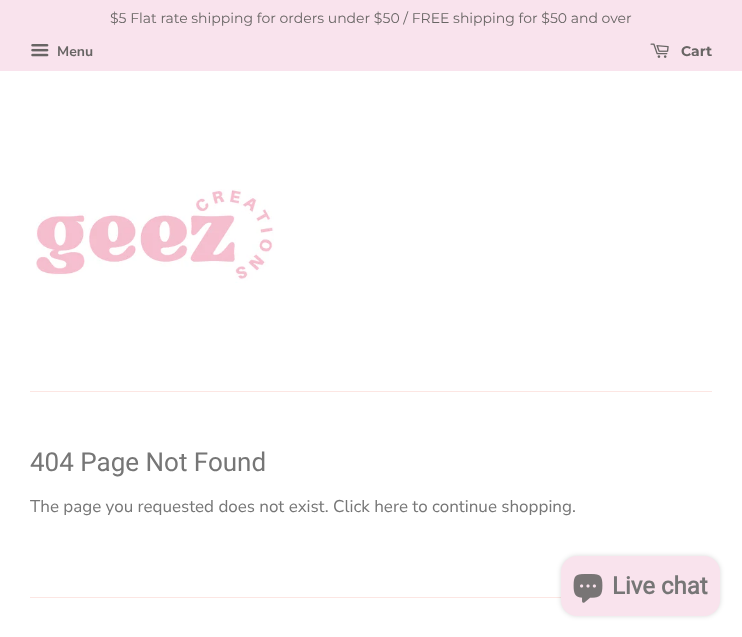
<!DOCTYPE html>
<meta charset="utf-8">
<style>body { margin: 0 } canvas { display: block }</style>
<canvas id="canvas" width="742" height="637"></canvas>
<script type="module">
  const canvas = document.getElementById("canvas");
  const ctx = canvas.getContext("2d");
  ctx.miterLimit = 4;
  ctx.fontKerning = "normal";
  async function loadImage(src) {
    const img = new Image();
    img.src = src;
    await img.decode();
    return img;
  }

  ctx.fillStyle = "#ffffff";
  ctx.fillRect(0, 0, 742, 637);
  ctx.fillStyle = "#f9e3ed";
  ctx.fillRect(0, 0, 742, 71);
  ctx.font = "14px Montserrat";
  ctx.fillStyle = "#686564";
  ctx.fillText("$5 Flat rate shipping for orders under $50 / FREE shipping for $50 and over", 110, 23);
  ctx.drawImage(await loadImage("img1.png"), 31, 44, 18, 13);
  ctx.font = "bold 14px Nunito Sans";
  ctx.fillText("Menu", 57, 56);
  ctx.drawImage(await loadImage("img2.png"), 650, 43, 19, 15);
  ctx.font = "bold 14px Montserrat";
  ctx.fillText("Cart", 681, 56);
  ctx.fillStyle = "#fce6e3";
  ctx.fillRect(30, 391, 682, 1);
  ctx.drawImage(await loadImage("img3.png"), 36, 189, 238, 94);
  ctx.font = "26px Roboto";
  ctx.fillStyle = "#767676";
  ctx.fillText("404 Page Not Found", 30, 471);
  ctx.font = "17px Nunito Sans";
  ctx.fillText("The page you requested does not exist. Click here to continue shopping.", 30, 512);
  ctx.fillStyle = "#fce6e3";
  ctx.fillRect(30, 597, 531, 1);
  ctx.fillStyle = "rgba(0, 0, 0, 0.15)";
  ctx.filter = "blur(2.5px)";
  ctx.beginPath();
  ctx.roundRect(561, 556, 159, 60, 16);
  ctx.fill();
  ctx.filter = "none";
  ctx.fillStyle = "#f9e3ed";
  ctx.beginPath();
  ctx.roundRect(561, 556, 159, 60, 16);
  ctx.fill();
  ctx.drawImage(await loadImage("img4.png"), 573, 574, 30, 29);
  ctx.font = "bold 24px Roboto";
  ctx.fillStyle = "#767676";
  ctx.fillText("Live chat", 612, 594);
</script>
